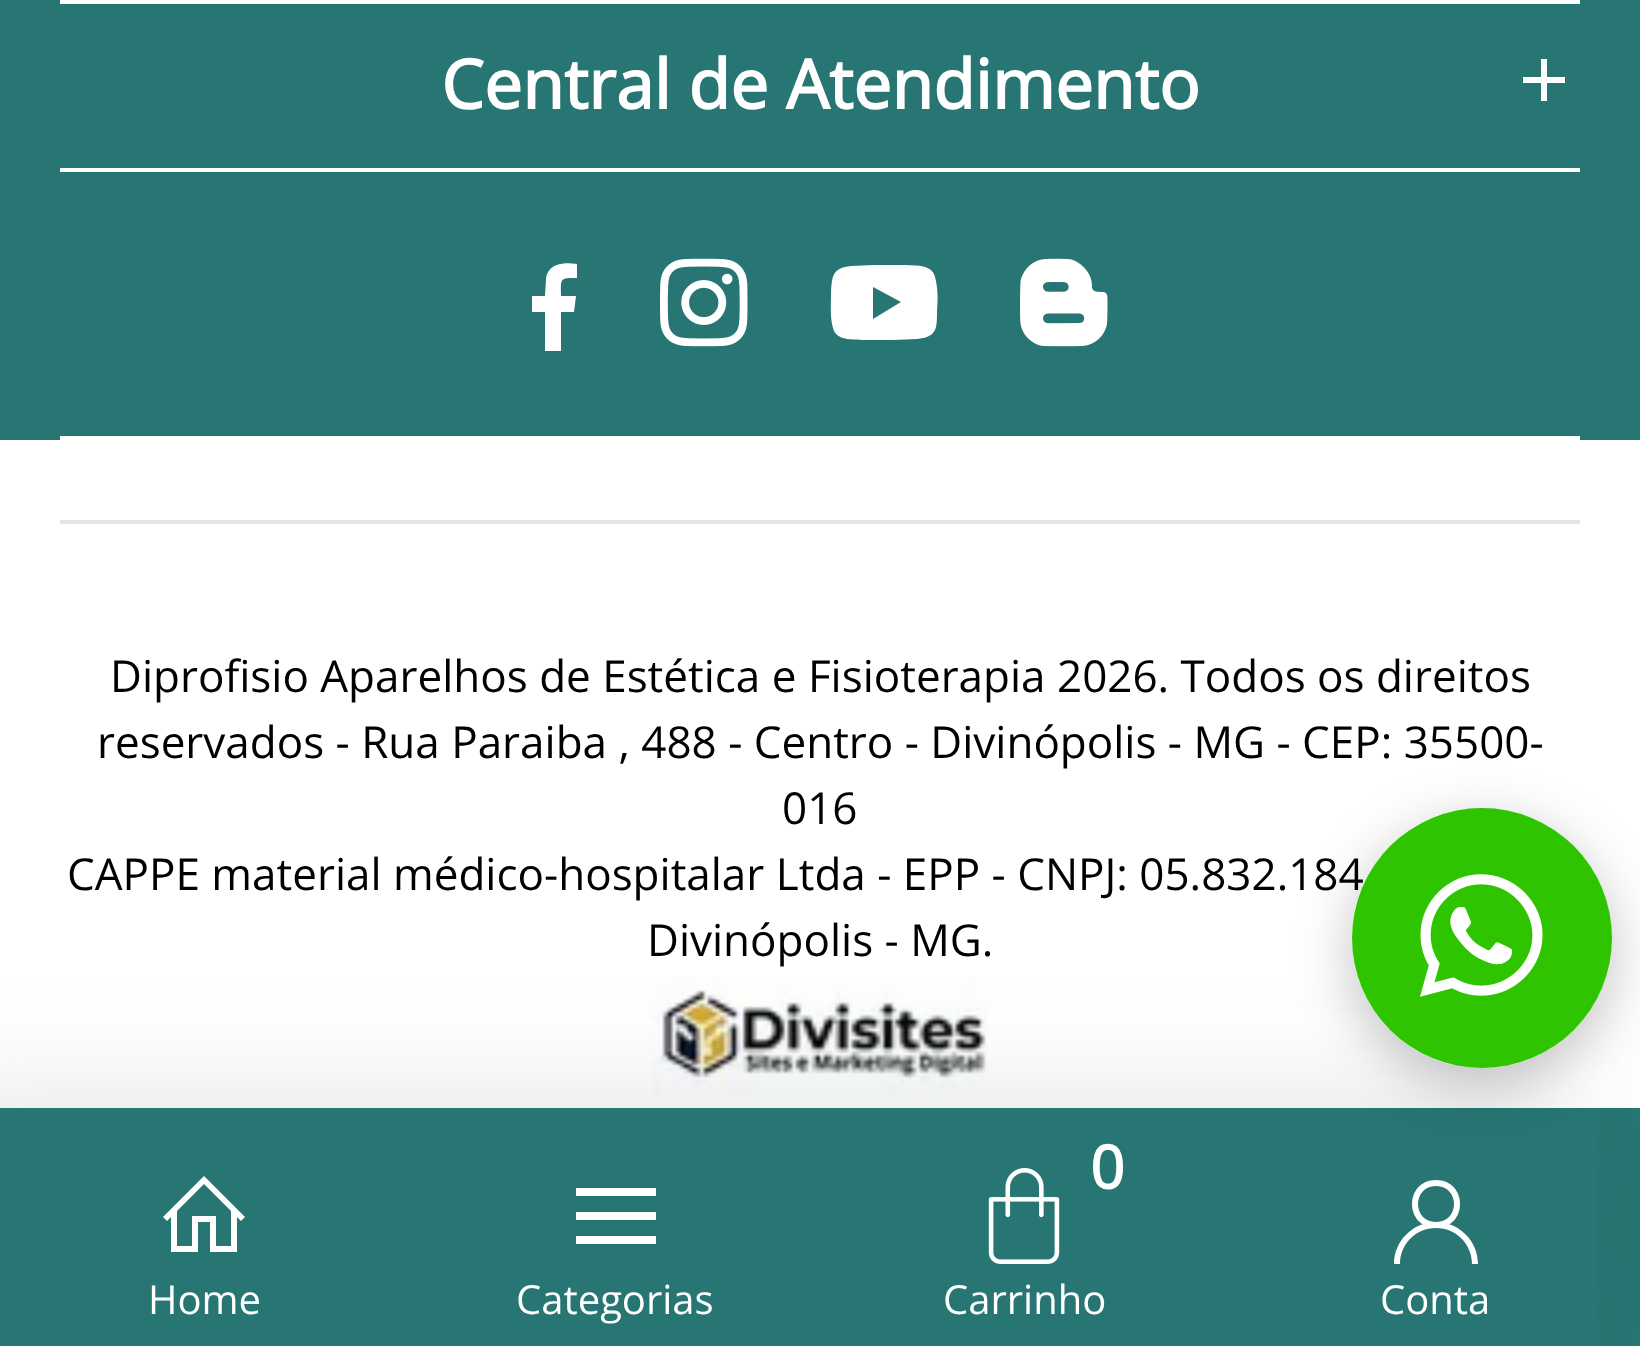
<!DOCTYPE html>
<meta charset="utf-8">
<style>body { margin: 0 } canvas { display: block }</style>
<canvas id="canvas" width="1640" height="1346"></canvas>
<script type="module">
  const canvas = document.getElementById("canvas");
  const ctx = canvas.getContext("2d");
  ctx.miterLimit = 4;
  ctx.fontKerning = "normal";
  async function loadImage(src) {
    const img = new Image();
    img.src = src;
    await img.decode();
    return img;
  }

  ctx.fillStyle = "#277673";
  ctx.fillRect(0, 0, 1640, 1346);
  ctx.fillStyle = "#ffffff";
  ctx.fillRect(60, 0, 1520, 4);
  ctx.fillRect(60, 168, 1520, 4);
  ctx.font = "bold 68px Open Sans";
  ctx.fillText("Central de Atendimento", 441, 109);
  ctx.beginPath();
  ctx.moveTo(1565, 83);
  ctx.lineTo(1547, 83);
  ctx.lineTo(1547, 101);
  ctx.lineTo(1541, 101);
  ctx.lineTo(1541, 83);
  ctx.lineTo(1523, 83);
  ctx.lineTo(1523, 77);
  ctx.lineTo(1541, 77);
  ctx.lineTo(1541, 59);
  ctx.lineTo(1547, 59);
  ctx.lineTo(1547, 77);
  ctx.lineTo(1565, 77);
  ctx.closePath();
  ctx.fill();
  ctx.fillRect(60, 436, 1520, 4);
  ctx.beginPath();
  ctx.moveTo(545, 351);
  ctx.lineTo(545, 312);
  ctx.lineTo(532, 312);
  ctx.lineTo(532, 296);
  ctx.lineTo(545, 296);
  ctx.lineTo(546, 279);
  ctx.bezierCurveTo(548, 263, 564, 262, 577, 264);
  ctx.lineTo(577, 278);
  ctx.bezierCurveTo(559, 278, 561, 278, 561, 296);
  ctx.lineTo(576, 296);
  ctx.lineTo(574, 312);
  ctx.lineTo(561, 312);
  ctx.lineTo(561, 351);
  ctx.closePath();
  ctx.fill();
  ctx.drawImage(await loadImage("img1.png"), 660, 258, 88, 89);
  ctx.beginPath();
  ctx.moveTo(935, 277);
  ctx.bezierCurveTo(932, 264, 916, 266, 906, 265);
  ctx.lineTo(875, 265);
  ctx.lineTo(851, 266);
  ctx.bezierCurveTo(832, 268, 832, 276, 831, 294);
  ctx.bezierCurveTo(831, 305, 830, 318, 833, 328);
  ctx.bezierCurveTo(836, 341, 852, 339, 862, 340);
  ctx.lineTo(893, 340);
  ctx.lineTo(917, 339);
  ctx.bezierCurveTo(937, 337, 937, 329, 937, 311);
  ctx.bezierCurveTo(938, 299, 938, 288, 935, 277);
  ctx.closePath();
  ctx.moveTo(873, 319);
  ctx.lineTo(873, 287);
  ctx.lineTo(901, 302);
  ctx.closePath();
  ctx.fill();
  ctx.drawImage(await loadImage("img2.png"), 1020, 258, 88, 89);
  ctx.fillRect(0, 440, 1640, 668);
  ctx.fillStyle = "#e5e5e5";
  ctx.fillRect(60, 520, 1520, 4);
  ctx.font = "44px Open Sans";
  ctx.fillStyle = "#000000";
  ctx.fillText("Diprofisio Aparelhos de Estética e Fisioterapia 2026. Todos os direitos", 110, 692);
  ctx.fillText("reservados - Rua Paraiba , 488 - Centro - Divinópolis - MG - CEP: 35500-", 97, 758);
  ctx.fillText("016", 782, 824);
  ctx.fillText("CAPPE material médico-hospitalar Ltda - EPP - CNPJ: 05.832.184", 67, 890);
  ctx.fillText("Divinópolis - MG.", 647, 956);
  ctx.drawImage(await loadImage("img3.png"), 652, 976, 336, 120);
  ctx.fillStyle = "rgba(43, 52, 69, 0.15)";
  ctx.filter = "blur(64px)";
  ctx.beginPath();
  ctx.rect(-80, 1108, 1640, 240);
  ctx.fill();
  ctx.filter = "none";
  ctx.fillStyle = "#2fc400";
  ctx.beginPath();
  ctx.arc(1482, 938, 130, 0, Math.PI * 2);
  ctx.fill();
  ctx.fillStyle = "#277673";
  ctx.fillRect(0, 1108, 1597, 238);
  ctx.save();
  ctx.beginPath();
  ctx.moveTo(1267, 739);
  ctx.lineTo(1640, 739);
  ctx.lineTo(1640, 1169);
  ctx.lineTo(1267, 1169);
  ctx.closePath();
  ctx.moveTo(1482, 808);
  ctx.bezierCurveTo(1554, 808, 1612, 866, 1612, 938);
  ctx.bezierCurveTo(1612, 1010, 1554, 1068, 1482, 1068);
  ctx.bezierCurveTo(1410, 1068, 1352, 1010, 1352, 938);
  ctx.bezierCurveTo(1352, 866, 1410, 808, 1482, 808);
  ctx.closePath();
  ctx.clip("evenodd");
  ctx.fillStyle = "rgba(0, 0, 0, 0.24)";
  ctx.filter = "blur(28px)";
  ctx.beginPath();
  ctx.roundRect(1352, 824, 260, 260, 130);
  ctx.fill();
  ctx.filter = "none";
  ctx.restore();
  ctx.drawImage(await loadImage("img4.png"), 1420, 874, 123, 123);
  ctx.fillStyle = "#ffffff";
  ctx.beginPath();
  ctx.moveTo(204, 1176);
  ctx.lineTo(163, 1217);
  ctx.lineTo(167, 1221);
  ctx.lineTo(171, 1217);
  ctx.lineTo(171, 1252);
  ctx.lineTo(198, 1252);
  ctx.lineTo(198, 1222);
  ctx.lineTo(210, 1222);
  ctx.lineTo(210, 1252);
  ctx.lineTo(237, 1252);
  ctx.lineTo(237, 1217);
  ctx.lineTo(241, 1221);
  ctx.lineTo(245, 1217);
  ctx.lineTo(206, 1178);
  ctx.closePath();
  ctx.moveTo(204, 1184);
  ctx.lineTo(231, 1211);
  ctx.lineTo(231, 1246);
  ctx.lineTo(216, 1246);
  ctx.lineTo(216, 1216);
  ctx.lineTo(192, 1216);
  ctx.lineTo(192, 1246);
  ctx.lineTo(177, 1246);
  ctx.lineTo(177, 1211);
  ctx.closePath();
  ctx.fill();
  ctx.font = "40px Open Sans";
  ctx.fillText("Home", 148, 1314);
  ctx.beginPath();
  ctx.moveTo(576, 1188);
  ctx.lineTo(576, 1196);
  ctx.lineTo(656, 1196);
  ctx.lineTo(656, 1188);
  ctx.closePath();
  ctx.moveTo(576, 1212);
  ctx.lineTo(576, 1220);
  ctx.lineTo(656, 1220);
  ctx.lineTo(656, 1212);
  ctx.closePath();
  ctx.moveTo(576, 1236);
  ctx.lineTo(576, 1244);
  ctx.lineTo(656, 1244);
  ctx.lineTo(656, 1236);
  ctx.closePath();
  ctx.fill();
  ctx.fillText("Categorias", 516, 1314);
  ctx.drawImage(await loadImage("img5.png"), 988, 1168, 72, 96);
  ctx.font = "bold 60px Open Sans";
  ctx.fillText("0", 1090, 1189);
  ctx.font = "40px Open Sans";
  ctx.fillText("Carrinho", 943, 1314);
  ctx.beginPath();
  ctx.moveTo(1436, 1228);
  ctx.bezierCurveTo(1404, 1228, 1404, 1180, 1436, 1180);
  ctx.bezierCurveTo(1468, 1180, 1468, 1228, 1436, 1228);
  ctx.closePath();
  ctx.moveTo(1436, 1186);
  ctx.bezierCurveTo(1412, 1186, 1412, 1222, 1436, 1222);
  ctx.bezierCurveTo(1460, 1222, 1460, 1186, 1436, 1186);
  ctx.closePath();
  ctx.fill();
  ctx.beginPath();
  ctx.moveTo(1478, 1264);
  ctx.lineTo(1472, 1264);
  ctx.bezierCurveTo(1472, 1244, 1456, 1228, 1436, 1228);
  ctx.bezierCurveTo(1416, 1228, 1400, 1244, 1400, 1264);
  ctx.lineTo(1394, 1264);
  ctx.bezierCurveTo(1394, 1241, 1413, 1222, 1436, 1222);
  ctx.bezierCurveTo(1459, 1222, 1478, 1241, 1478, 1264);
  ctx.closePath();
  ctx.fill();
  ctx.fillText("Conta", 1380, 1314);
</script>
